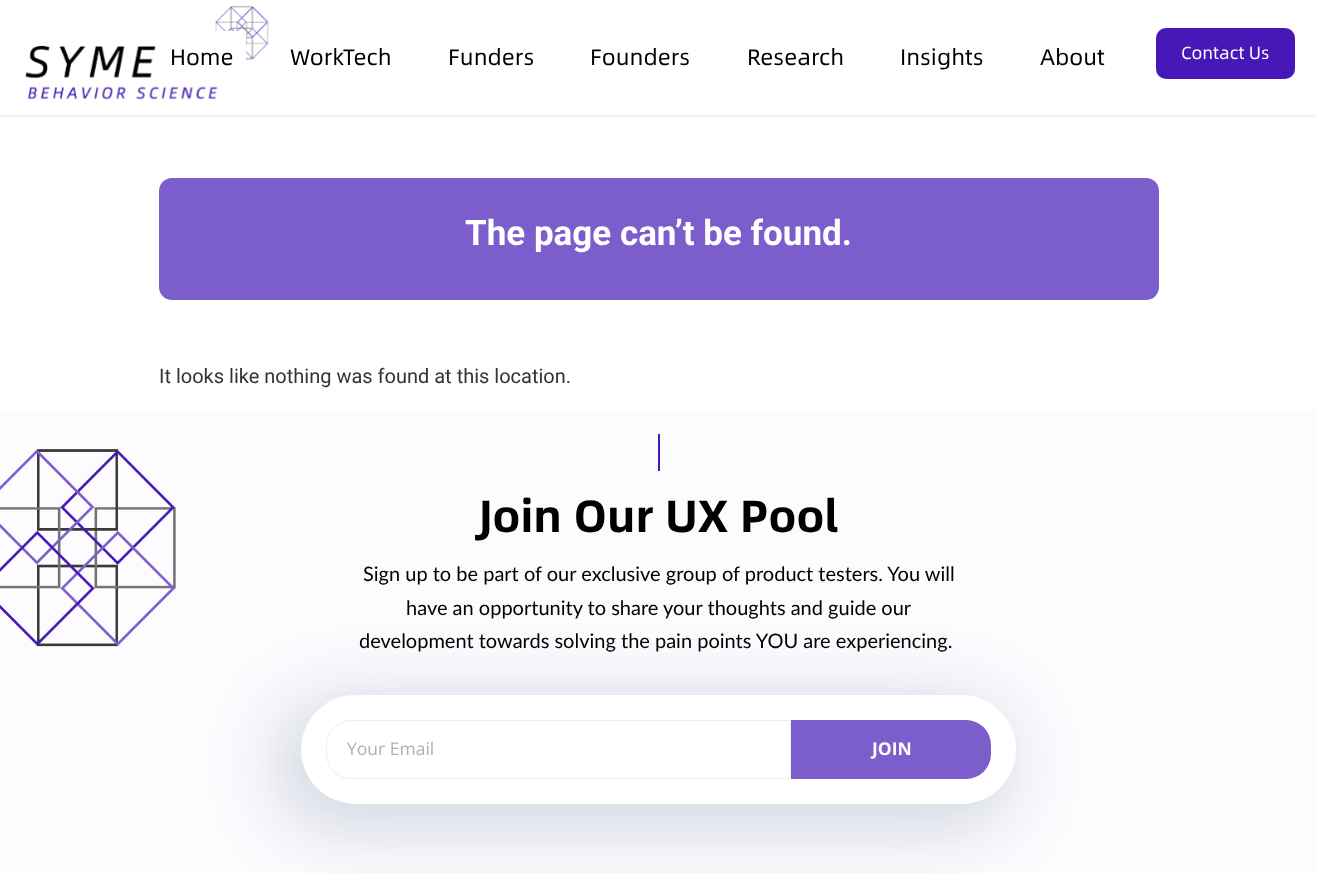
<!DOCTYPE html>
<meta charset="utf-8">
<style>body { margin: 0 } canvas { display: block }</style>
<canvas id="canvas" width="1317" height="873"></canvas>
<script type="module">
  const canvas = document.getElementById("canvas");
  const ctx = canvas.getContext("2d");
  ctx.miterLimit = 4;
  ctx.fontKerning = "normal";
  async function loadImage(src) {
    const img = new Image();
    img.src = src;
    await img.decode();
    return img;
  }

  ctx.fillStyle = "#ffffff";
  ctx.fillRect(0, 0, 1317, 873);
  ctx.save();
  ctx.beginPath();
  ctx.rect(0, 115, 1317, 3);
  ctx.clip();
  ctx.fillStyle = "rgba(0, 0, 0, 0.1)";
  ctx.filter = "blur(2px)";
  ctx.beginPath();
  ctx.rect(0, 1, 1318, 115);
  ctx.fill();
  ctx.filter = "none";
  ctx.restore();
  ctx.drawImage(await loadImage("img1.png"), 25, 6, 244, 94);
  ctx.fillRect(163, 31, 83, 47);
  ctx.font = "22.5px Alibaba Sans";
  ctx.fillStyle = "#000000";
  ctx.fillText("Home", 170, 65);
  ctx.fillText("WorkTech", 290, 65);
  ctx.fillText("Funders", 448, 65);
  ctx.fillText("Founders", 590, 65);
  ctx.fillText("Research", 747, 65);
  ctx.fillText("Insights", 900, 65);
  ctx.fillText("About", 1040, 65);
  ctx.fillStyle = "#4518b7";
  ctx.beginPath();
  ctx.roundRect(1156, 28, 139, 51, 10);
  ctx.fill();
  ctx.font = "17.5px Alibaba Sans";
  ctx.fillStyle = "#ffffff";
  ctx.fillText("Contact Us", 1181, 59);
  ctx.fillStyle = "#7c5dcc";
  ctx.beginPath();
  ctx.roundRect(159, 178, 1000, 122, 13);
  ctx.fill();
  ctx.font = "bold 35px Roboto";
  ctx.fillStyle = "#ffffff";
  ctx.fillText("The page can’t be found.", 465, 245);
  ctx.font = "20px Roboto";
  ctx.fillStyle = "#333333";
  ctx.fillText("It looks like nothing was found at this location.", 159, 383);
  ctx.fillStyle = "#fcfbfe";
  ctx.fillRect(0, 410, 1317, 463);
  ctx.drawImage(await loadImage("img2.png"), 0, 449, 176, 198);
  ctx.fillStyle = "#4518b7";
  ctx.fillRect(658, 434, 2, 37);
  ctx.font = "bold 45px Alibaba Sans";
  ctx.fillStyle = "#000000";
  ctx.fillText("Join Our UX Pool", 479, 532);
  ctx.font = "20px Lato";
  ctx.fillText("Sign up to be part of our exclusive group of product testers. You will", 363, 581);
  ctx.fillText("have an opportunity to share your thoughts and guide our", 406, 615);
  ctx.fillText("development towards solving the pain points YOU are experiencing.", 359, 648);
  ctx.fillStyle = "rgba(16, 45, 94, 0.17)";
  ctx.filter = "blur(35px)";
  ctx.beginPath();
  ctx.roundRect(274, 698, 740, 133, 66.5);
  ctx.fill();
  ctx.filter = "none";
  ctx.fillStyle = "#ffffff";
  ctx.beginPath();
  ctx.roundRect(301, 695, 715, 109, 54.5);
  ctx.fill();
  ctx.beginPath();
  ctx.roundRect(326.5, 720.5, 464, 58, [24.5, 0, 0, 24.5]);
  ctx.strokeStyle = "#eeeeee";
  ctx.stroke();
  ctx.font = "17.5px Open Sans";
  ctx.fillStyle = "#b0b0b0";
  ctx.fillText("Your Email", 347, 755);
  ctx.fillStyle = "#7c5dcc";
  ctx.beginPath();
  ctx.roundRect(791, 720, 200, 59, [0, 25, 25, 0]);
  ctx.fill();
  ctx.font = "bold 17.5px Open Sans";
  ctx.fillStyle = "#ffffff";
  ctx.fillText("JOIN", 872, 755);
</script>
